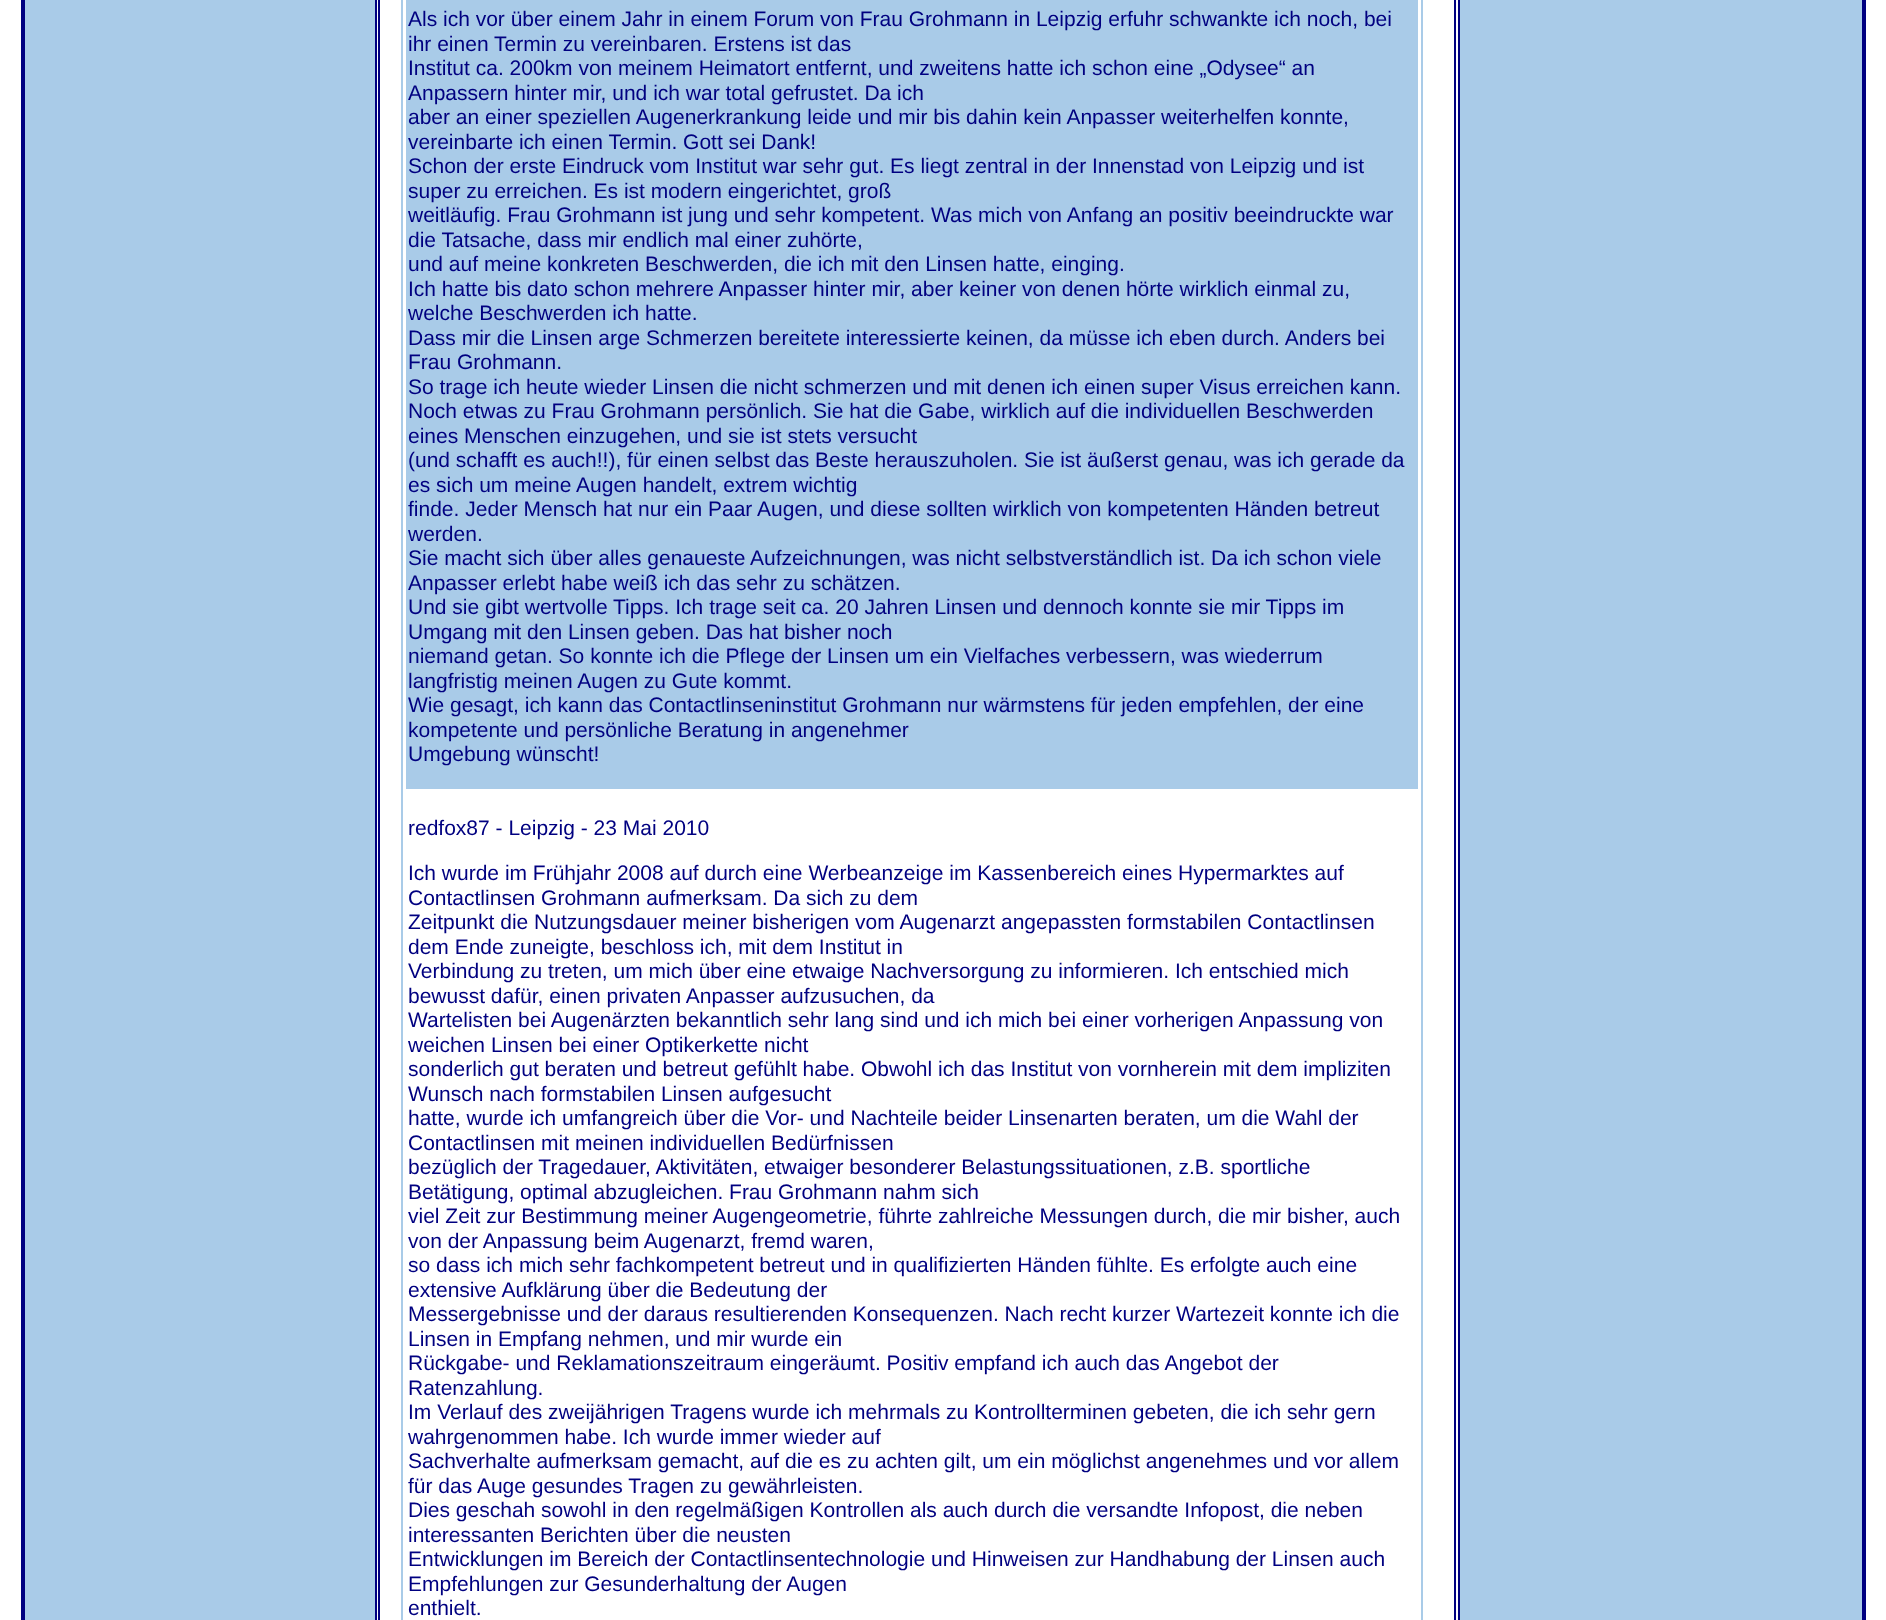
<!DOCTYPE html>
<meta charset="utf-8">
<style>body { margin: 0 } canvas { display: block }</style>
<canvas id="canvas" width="1886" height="1620"></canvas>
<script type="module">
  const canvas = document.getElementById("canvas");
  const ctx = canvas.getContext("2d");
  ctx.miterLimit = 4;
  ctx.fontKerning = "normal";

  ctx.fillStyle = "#ffffff";
  ctx.fillRect(0, 0, 1886, 1620);
  ctx.fillStyle = "#a9cbe8";
  ctx.beginPath();
  ctx.rect(23, -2, 1841, 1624);
  ctx.fill();
  ctx.strokeStyle = "#000080";
  ctx.lineWidth = 4;
  ctx.stroke();
  ctx.fillStyle = "#ffffff";
  ctx.fillRect(377, 0, 1081, 1620);
  ctx.fillStyle = "#000080";
  ctx.fillRect(1454, 0, 2, 1620);
  ctx.fillRect(1458, 0, 2, 1620);
  ctx.fillRect(375, 0, 2, 1620);
  ctx.fillRect(378, 0, 2, 1620);
  ctx.strokeStyle = "#a9cbe8";
  ctx.lineWidth = 2;
  ctx.strokeRect(402, -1, 1020, 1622);
  ctx.fillStyle = "#a9cbe8";
  ctx.fillRect(406, 0, 1012, 789);
  ctx.font = "21px Liberation Sans";
  ctx.fillStyle = "#000080";
  ctx.fillText("Als ich vor über einem Jahr in einem Forum von Frau Grohmann in Leipzig erfuhr schwankte ich noch, bei", 408, 26);
  ctx.fillText("ihr einen Termin zu vereinbaren. Erstens ist das", 408, 51);
  ctx.fillText("Institut ca. 200km von meinem Heimatort entfernt, und zweitens hatte ich schon eine „Odysee“ an", 408, 75);
  ctx.fillText("Anpassern hinter mir, und ich war total gefrustet. Da ich", 408, 100);
  ctx.fillText("aber an einer speziellen Augenerkrankung leide und mir bis dahin kein Anpasser weiterhelfen konnte,", 408, 124);
  ctx.fillText("vereinbarte ich einen Termin. Gott sei Dank!", 408, 149);
  ctx.fillText("Schon der erste Eindruck vom Institut war sehr gut. Es liegt zentral in der Innenstad von Leipzig und ist", 408, 173);
  ctx.fillText("super zu erreichen. Es ist modern eingerichtet, groß", 408, 198);
  ctx.fillText("weitläufig. Frau Grohmann ist jung und sehr kompetent. Was mich von Anfang an positiv beeindruckte war", 408, 222);
  ctx.fillText("die Tatsache, dass mir endlich mal einer zuhörte,", 408, 247);
  ctx.fillText("und auf meine konkreten Beschwerden, die ich mit den Linsen hatte, einging.", 408, 271);
  ctx.fillText("Ich hatte bis dato schon mehrere Anpasser hinter mir, aber keiner von denen hörte wirklich einmal zu,", 408, 296);
  ctx.fillText("welche Beschwerden ich hatte.", 408, 320);
  ctx.fillText("Dass mir die Linsen arge Schmerzen bereitete interessierte keinen, da müsse ich eben durch. Anders bei", 408, 345);
  ctx.fillText("Frau Grohmann.", 408, 369);
  ctx.fillText("So trage ich heute wieder Linsen die nicht schmerzen und mit denen ich einen super Visus erreichen kann.", 408, 394);
  ctx.fillText("Noch etwas zu Frau Grohmann persönlich. Sie hat die Gabe, wirklich auf die individuellen Beschwerden", 408, 418);
  ctx.fillText("eines Menschen einzugehen, und sie ist stets versucht", 408, 443);
  ctx.fillText("(und schafft es auch!!), für einen selbst das Beste herauszuholen. Sie ist äußerst genau, was ich gerade da", 408, 467);
  ctx.fillText("es sich um meine Augen handelt, extrem wichtig", 408, 492);
  ctx.fillText("finde. Jeder Mensch hat nur ein Paar Augen, und diese sollten wirklich von kompetenten Händen betreut", 408, 516);
  ctx.fillText("werden.", 408, 541);
  ctx.fillText("Sie macht sich über alles genaueste Aufzeichnungen, was nicht selbstverständlich ist. Da ich schon viele", 408, 565);
  ctx.fillText("Anpasser erlebt habe weiß ich das sehr zu schätzen.", 408, 590);
  ctx.fillText("Und sie gibt wertvolle Tipps. Ich trage seit ca. 20 Jahren Linsen und dennoch konnte sie mir Tipps im", 408, 614);
  ctx.fillText("Umgang mit den Linsen geben. Das hat bisher noch", 408, 639);
  ctx.fillText("niemand getan. So konnte ich die Pflege der Linsen um ein Vielfaches verbessern, was wiederrum", 408, 663);
  ctx.fillText("langfristig meinen Augen zu Gute kommt.", 408, 688);
  ctx.fillText("Wie gesagt, ich kann das Contactlinseninstitut Grohmann nur wärmstens für jeden empfehlen, der eine", 408, 712);
  ctx.fillText("kompetente und persönliche Beratung in angenehmer", 408, 737);
  ctx.fillText("Umgebung wünscht!", 408, 761);
  ctx.fillText("redfox87 - Leipzig - 23 Mai 2010", 408, 835);
  ctx.fillText("Ich wurde im Frühjahr 2008 auf durch eine Werbeanzeige im Kassenbereich eines Hypermarktes auf", 408, 880);
  ctx.fillText("Contactlinsen Grohmann aufmerksam. Da sich zu dem", 408, 905);
  ctx.fillText("Zeitpunkt die Nutzungsdauer meiner bisherigen vom Augenarzt angepassten formstabilen Contactlinsen", 408, 929);
  ctx.fillText("dem Ende zuneigte, beschloss ich, mit dem Institut in", 408, 954);
  ctx.fillText("Verbindung zu treten, um mich über eine etwaige Nachversorgung zu informieren. Ich entschied mich", 408, 978);
  ctx.fillText("bewusst dafür, einen privaten Anpasser aufzusuchen, da", 408, 1003);
  ctx.fillText("Wartelisten bei Augenärzten bekanntlich sehr lang sind und ich mich bei einer vorherigen Anpassung von", 408, 1027);
  ctx.fillText("weichen Linsen bei einer Optikerkette nicht", 408, 1052);
  ctx.fillText("sonderlich gut beraten und betreut gefühlt habe. Obwohl ich das Institut von vornherein mit dem impliziten", 408, 1076);
  ctx.fillText("Wunsch nach formstabilen Linsen aufgesucht", 408, 1101);
  ctx.fillText("hatte, wurde ich umfangreich über die Vor- und Nachteile beider Linsenarten beraten, um die Wahl der", 408, 1125);
  ctx.fillText("Contactlinsen mit meinen individuellen Bedürfnissen", 408, 1150);
  ctx.fillText("bezüglich der Tragedauer, Aktivitäten, etwaiger besonderer Belastungssituationen, z.B. sportliche", 408, 1174);
  ctx.fillText("Betätigung, optimal abzugleichen. Frau Grohmann nahm sich", 408, 1199);
  ctx.fillText("viel Zeit zur Bestimmung meiner Augengeometrie, führte zahlreiche Messungen durch, die mir bisher, auch", 408, 1223);
  ctx.fillText("von der Anpassung beim Augenarzt, fremd waren,", 408, 1248);
  ctx.fillText("so dass ich mich sehr fachkompetent betreut und in qualifizierten Händen fühlte. Es erfolgte auch eine", 408, 1272);
  ctx.fillText("extensive Aufklärung über die Bedeutung der", 408, 1297);
  ctx.fillText("Messergebnisse und der daraus resultierenden Konsequenzen. Nach recht kurzer Wartezeit konnte ich die", 408, 1321);
  ctx.fillText("Linsen in Empfang nehmen, und mir wurde ein", 408, 1346);
  ctx.fillText("Rückgabe- und Reklamationszeitraum eingeräumt. Positiv empfand ich auch das Angebot der", 408, 1370);
  ctx.fillText("Ratenzahlung.", 408, 1395);
  ctx.fillText("Im Verlauf des zweijährigen Tragens wurde ich mehrmals zu Kontrollterminen gebeten, die ich sehr gern", 408, 1419);
  ctx.fillText("wahrgenommen habe. Ich wurde immer wieder auf", 408, 1444);
  ctx.fillText("Sachverhalte aufmerksam gemacht, auf die es zu achten gilt, um ein möglichst angenehmes und vor allem", 408, 1468);
  ctx.fillText("für das Auge gesundes Tragen zu gewährleisten.", 408, 1493);
  ctx.fillText("Dies geschah sowohl in den regelmäßigen Kontrollen als auch durch die versandte Infopost, die neben", 408, 1517);
  ctx.fillText("interessanten Berichten über die neusten", 408, 1542);
  ctx.fillText("Entwicklungen im Bereich der Contactlinsentechnologie und Hinweisen zur Handhabung der Linsen auch", 408, 1566);
  ctx.fillText("Empfehlungen zur Gesunderhaltung der Augen", 408, 1591);
  ctx.fillText("enthielt.", 408, 1615);
</script>
